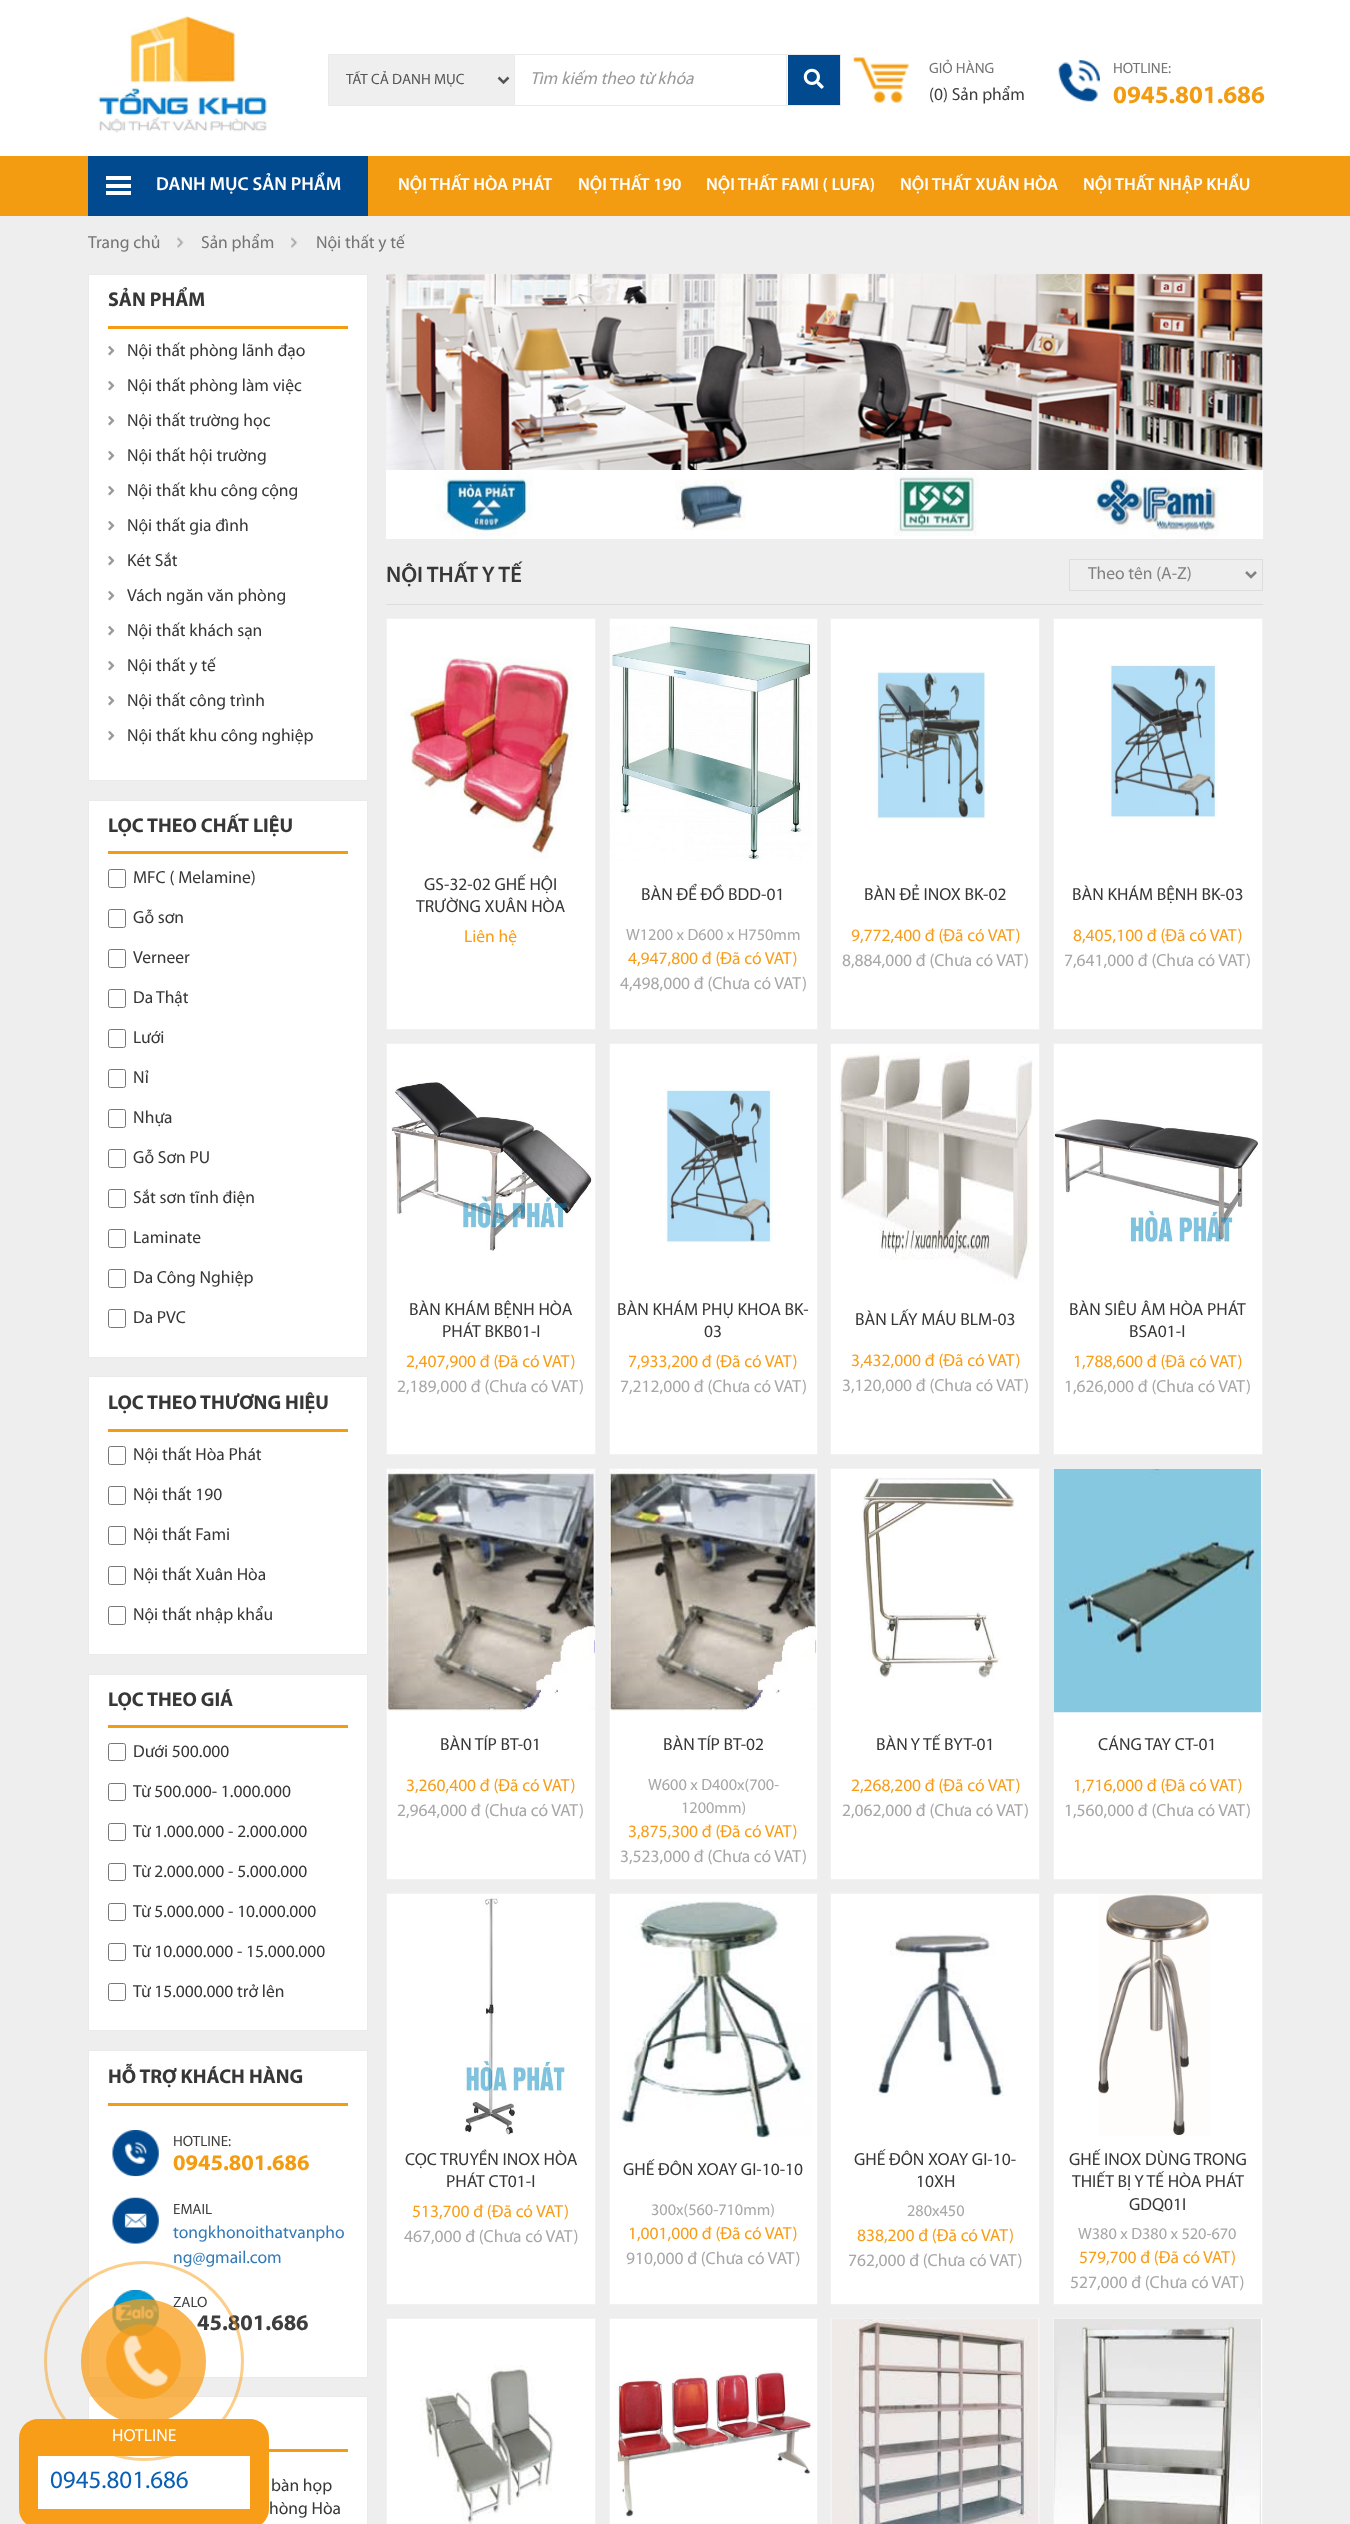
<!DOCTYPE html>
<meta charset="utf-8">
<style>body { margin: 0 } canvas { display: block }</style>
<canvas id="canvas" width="1350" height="2524"></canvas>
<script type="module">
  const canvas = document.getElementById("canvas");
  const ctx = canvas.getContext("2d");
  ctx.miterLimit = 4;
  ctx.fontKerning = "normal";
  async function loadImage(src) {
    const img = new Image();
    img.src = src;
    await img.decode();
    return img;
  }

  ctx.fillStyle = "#eeeeee";
  ctx.fillRect(0, 0, 1350, 2524);
  ctx.fillStyle = "#ffffff";
  ctx.fillRect(0, 0, 1350, 156);
  ctx.drawImage(await loadImage("img1.png"), 96, 14, 172, 119);
  ctx.fillStyle = "#efefef";
  ctx.beginPath();
  ctx.rect(328.5, 54.5, 186, 51);
  ctx.fill();
  ctx.strokeStyle = "#eaeaea";
  ctx.stroke();
  ctx.beginPath();
  ctx.moveTo(498.5, 77.5);
  ctx.lineTo(503.5, 82.5);
  ctx.lineTo(508.5, 77.5);
  ctx.strokeStyle = "#555555";
  ctx.lineWidth = 2.5;
  ctx.stroke();
  ctx.save();
  ctx.beginPath();
  ctx.rect(346, 71, 148, 18);
  ctx.clip();
  ctx.font = "15px Myriad";
  ctx.fillStyle = "#555555";
  ctx.fillText("TẤT CẢ DANH MỤC", 346, 84);
  ctx.restore();
  ctx.fillStyle = "#eaeaea";
  ctx.fillRect(515, 54, 273, 1);
  ctx.fillRect(786, 54, 1, 52);
  ctx.fillRect(515, 105, 273, 1);
  ctx.font = "italic 17.5px Myriad";
  ctx.fillStyle = "#999999";
  ctx.fillText("Tìm kiếm theo từ khóa", 530, 84);
  ctx.fillStyle = "#024a8f";
  ctx.fillRect(788, 55, 52, 50);
  ctx.fillStyle = "#eaeaea";
  ctx.fillRect(788, 54, 53, 1);
  ctx.fillRect(840, 54, 1, 52);
  ctx.fillRect(788, 105, 53, 1);
  ctx.drawImage(await loadImage("img2.png"), 803, 68, 21, 21);
  ctx.drawImage(await loadImage("img3.png"), 853, 57, 56, 46);
  ctx.font = "15px Myriad";
  ctx.fillStyle = "#747474";
  ctx.fillText("GIỎ HÀNG", 929, 73);
  ctx.font = "17.5px Myriad";
  ctx.fillStyle = "#3e3e3e";
  ctx.fillText("(0) Sản phẩm", 929, 100);
  ctx.drawImage(await loadImage("img4.png"), 1058, 60, 42, 42);
  ctx.font = "15px Myriad";
  ctx.fillStyle = "#747474";
  ctx.fillText("HOTLINE:", 1113, 73);
  ctx.font = "bold 25px Myriad";
  ctx.fillStyle = "#f39c11";
  ctx.fillText("0945.801.686", 1113, 103);
  ctx.fillRect(0, 156, 1350, 60);
  ctx.fillStyle = "#024a8f";
  ctx.fillRect(88, 156, 280, 60);
  ctx.fillStyle = "#ffffff";
  ctx.fillRect(106, 176, 25, 4);
  ctx.fillRect(106, 184, 25, 4);
  ctx.fillRect(106, 191, 25, 4);
  ctx.font = "600 18.75px Myriad";
  ctx.fillText("DANH MỤC SẢN PHẨM", 156, 190);
  ctx.font = "600 17.5px Myriad";
  ctx.fillText("NỘI THẤT HÒA PHÁT", 398, 190);
  ctx.fillText("NỘI THẤT 190", 578, 190);
  ctx.fillText("NỘI THẤT FAMI ( LUFA)", 706, 190);
  ctx.fillText("NỘI THẤT XUÂN HÒA", 900, 190);
  ctx.fillText("NỘI THẤT NHẬP KHẨU", 1083, 190);
  ctx.font = "17.5px Myriad";
  ctx.fillStyle = "#747474";
  ctx.fillText("Trang chủ", 88, 248);
  ctx.drawImage(await loadImage("img5.png"), 177, 237, 7, 11);
  ctx.fillText("Sản phẩm", 201, 248);
  ctx.drawImage(await loadImage("img6.png"), 291, 237, 7, 11);
  ctx.fillText("Nội thất y tế", 316, 248);
  ctx.fillStyle = "#ffffff";
  ctx.beginPath();
  ctx.rect(88.5, 274.5, 279, 506);
  ctx.fill();
  ctx.strokeStyle = "#eaeaea";
  ctx.lineWidth = 1;
  ctx.stroke();
  ctx.fillStyle = "#f39c11";
  ctx.fillRect(108, 326, 240, 3);
  ctx.font = "bold 20px Myriad";
  ctx.fillStyle = "#373737";
  ctx.fillText("SẢN PHẨM", 108, 306);
  ctx.drawImage(await loadImage("img7.png"), 108, 346, 7, 10);
  ctx.font = "17.5px Myriad";
  ctx.fillText("Nội thất phòng lãnh đạo", 127, 356);
  ctx.drawImage(await loadImage("img7.png"), 108, 381, 7, 10);
  ctx.fillText("Nội thất phòng làm việc", 127, 391);
  ctx.drawImage(await loadImage("img7.png"), 108, 416, 7, 10);
  ctx.fillText("Nội thất trường học", 127, 426);
  ctx.drawImage(await loadImage("img7.png"), 108, 451, 7, 10);
  ctx.fillText("Nội thất hội trường", 127, 461);
  ctx.drawImage(await loadImage("img7.png"), 108, 486, 7, 10);
  ctx.fillText("Nội thất khu công cộng", 127, 496);
  ctx.drawImage(await loadImage("img7.png"), 108, 521, 7, 10);
  ctx.fillText("Nội thất gia đình", 127, 531);
  ctx.drawImage(await loadImage("img7.png"), 108, 556, 7, 10);
  ctx.fillText("Két Sắt", 127, 566);
  ctx.drawImage(await loadImage("img7.png"), 108, 591, 7, 10);
  ctx.fillText("Vách ngăn văn phòng", 127, 601);
  ctx.drawImage(await loadImage("img7.png"), 108, 626, 7, 10);
  ctx.fillText("Nội thất khách sạn", 127, 636);
  ctx.drawImage(await loadImage("img7.png"), 108, 661, 7, 10);
  ctx.fillText("Nội thất y tế", 127, 671);
  ctx.drawImage(await loadImage("img7.png"), 108, 696, 7, 10);
  ctx.fillText("Nội thất công trình", 127, 706);
  ctx.drawImage(await loadImage("img7.png"), 108, 731, 7, 10);
  ctx.fillText("Nội thất khu công nghiệp", 127, 741);
  ctx.fillStyle = "#ffffff";
  ctx.beginPath();
  ctx.rect(88.5, 800.5, 279, 557);
  ctx.fill();
  ctx.stroke();
  ctx.fillStyle = "#f39c11";
  ctx.fillRect(108, 851, 240, 3);
  ctx.font = "bold 20px Myriad";
  ctx.fillStyle = "#373737";
  ctx.fillText("LỌC THEO CHẤT LIỆU", 108, 832);
  ctx.beginPath();
  ctx.roundRect(108.5, 869.5, 17, 18, 2);
  ctx.strokeStyle = "#767676";
  ctx.stroke();
  ctx.font = "17.5px Myriad";
  ctx.fillText("MFC ( Melamine)", 133, 883);
  ctx.beginPath();
  ctx.roundRect(108.5, 909.5, 17, 18, 2);
  ctx.stroke();
  ctx.fillText("Gỗ sơn", 133, 923);
  ctx.beginPath();
  ctx.roundRect(108.5, 949.5, 17, 18, 2);
  ctx.stroke();
  ctx.fillText("Verneer", 133, 963);
  ctx.beginPath();
  ctx.roundRect(108.5, 989.5, 17, 18, 2);
  ctx.stroke();
  ctx.fillText("Da Thật", 133, 1003);
  ctx.beginPath();
  ctx.roundRect(108.5, 1029.5, 17, 18, 2);
  ctx.stroke();
  ctx.fillText("Lưới", 133, 1043);
  ctx.beginPath();
  ctx.roundRect(108.5, 1069.5, 17, 18, 2);
  ctx.stroke();
  ctx.fillText("Nỉ", 133, 1083);
  ctx.beginPath();
  ctx.roundRect(108.5, 1109.5, 17, 18, 2);
  ctx.stroke();
  ctx.fillText("Nhựa", 133, 1123);
  ctx.beginPath();
  ctx.roundRect(108.5, 1149.5, 17, 18, 2);
  ctx.stroke();
  ctx.fillText("Gỗ Sơn PU", 133, 1163);
  ctx.beginPath();
  ctx.roundRect(108.5, 1189.5, 17, 18, 2);
  ctx.stroke();
  ctx.fillText("Sắt sơn tĩnh điện", 133, 1203);
  ctx.beginPath();
  ctx.roundRect(108.5, 1229.5, 17, 18, 2);
  ctx.stroke();
  ctx.fillText("Laminate", 133, 1243);
  ctx.beginPath();
  ctx.roundRect(108.5, 1269.5, 17, 18, 2);
  ctx.stroke();
  ctx.fillText("Da Công Nghiệp", 133, 1283);
  ctx.beginPath();
  ctx.roundRect(108.5, 1309.5, 17, 18, 2);
  ctx.stroke();
  ctx.fillText("Da PVC", 133, 1323);
  ctx.fillStyle = "#ffffff";
  ctx.beginPath();
  ctx.rect(88.5, 1376.5, 279, 278);
  ctx.fill();
  ctx.strokeStyle = "#eaeaea";
  ctx.stroke();
  ctx.fillStyle = "#f39c11";
  ctx.fillRect(108, 1429, 240, 3);
  ctx.font = "bold 20px Myriad";
  ctx.fillStyle = "#373737";
  ctx.fillText("LỌC THEO THƯƠNG HIỆU", 108, 1409);
  ctx.beginPath();
  ctx.roundRect(108.5, 1446.5, 17, 18, 2);
  ctx.strokeStyle = "#767676";
  ctx.stroke();
  ctx.font = "17.5px Myriad";
  ctx.fillText("Nội thất Hòa Phát", 133, 1460);
  ctx.beginPath();
  ctx.roundRect(108.5, 1486.5, 17, 18, 2);
  ctx.stroke();
  ctx.fillText("Nội thất 190", 133, 1500);
  ctx.beginPath();
  ctx.roundRect(108.5, 1526.5, 17, 18, 2);
  ctx.stroke();
  ctx.fillText("Nội thất Fami", 133, 1540);
  ctx.beginPath();
  ctx.roundRect(108.5, 1566.5, 17, 18, 2);
  ctx.stroke();
  ctx.fillText("Nội thất Xuân Hòa", 133, 1580);
  ctx.beginPath();
  ctx.roundRect(108.5, 1606.5, 17, 18, 2);
  ctx.stroke();
  ctx.fillText("Nội thất nhập khẩu", 133, 1620);
  ctx.fillStyle = "#ffffff";
  ctx.beginPath();
  ctx.rect(88.5, 1674.5, 279, 356);
  ctx.fill();
  ctx.strokeStyle = "#eaeaea";
  ctx.stroke();
  ctx.fillStyle = "#f39c11";
  ctx.fillRect(108, 1725, 240, 3);
  ctx.font = "bold 20px Myriad";
  ctx.fillStyle = "#373737";
  ctx.fillText("LỌC THEO GIÁ", 108, 1706);
  ctx.beginPath();
  ctx.roundRect(108.5, 1743.5, 17, 17, 2);
  ctx.strokeStyle = "#767676";
  ctx.stroke();
  ctx.font = "17.5px Myriad";
  ctx.fillText("Dưới 500.000", 133, 1757);
  ctx.beginPath();
  ctx.roundRect(108.5, 1783.5, 17, 17, 2);
  ctx.stroke();
  ctx.fillText("Từ 500.000- 1.000.000", 133, 1797);
  ctx.beginPath();
  ctx.roundRect(108.5, 1823.5, 17, 17, 2);
  ctx.stroke();
  ctx.fillText("Từ 1.000.000 - 2.000.000", 133, 1837);
  ctx.beginPath();
  ctx.roundRect(108.5, 1863.5, 17, 17, 2);
  ctx.stroke();
  ctx.fillText("Từ 2.000.000 - 5.000.000", 133, 1877);
  ctx.beginPath();
  ctx.roundRect(108.5, 1903.5, 17, 17, 2);
  ctx.stroke();
  ctx.fillText("Từ 5.000.000 - 10.000.000", 133, 1917);
  ctx.beginPath();
  ctx.roundRect(108.5, 1943.5, 17, 17, 2);
  ctx.stroke();
  ctx.fillText("Từ 10.000.000 - 15.000.000", 133, 1957);
  ctx.beginPath();
  ctx.roundRect(108.5, 1983.5, 17, 17, 2);
  ctx.stroke();
  ctx.fillText("Từ 15.000.000 trở lên", 133, 1997);
  ctx.fillStyle = "#ffffff";
  ctx.beginPath();
  ctx.rect(88.5, 2050.5, 279, 327);
  ctx.fill();
  ctx.strokeStyle = "#eaeaea";
  ctx.stroke();
  ctx.fillStyle = "#f39c11";
  ctx.fillRect(108, 2103, 240, 3);
  ctx.font = "bold 20px Myriad";
  ctx.fillStyle = "#373737";
  ctx.fillText("HỖ TRỢ KHÁCH HÀNG", 108, 2083);
  ctx.drawImage(await loadImage("img8.png"), 112, 2130, 47, 47);
  ctx.font = "15px Myriad";
  ctx.fillStyle = "#3e3e3e";
  ctx.fillText("HOTLINE:", 173, 2146);
  ctx.font = "bold 22.5px Myriad";
  ctx.fillStyle = "#f39c11";
  ctx.fillText("0945.801.686", 173, 2170);
  ctx.drawImage(await loadImage("img9.png"), 112, 2197, 47, 47);
  ctx.font = "15px Myriad";
  ctx.fillStyle = "#3e3e3e";
  ctx.fillText("EMAIL", 173, 2214);
  ctx.font = "17.5px Myriad";
  ctx.fillStyle = "#337ab7";
  ctx.fillText("tongkhonoithatvanpho", 173, 2238);
  ctx.fillText("ng@gmail.com", 173, 2263);
  ctx.drawImage(await loadImage("img10.png"), 112, 2290, 47, 47);
  ctx.font = "15px Myriad";
  ctx.fillStyle = "#3e3e3e";
  ctx.fillText("ZALO", 173, 2307);
  ctx.font = "bold 22.5px Myriad";
  ctx.fillText("45.801.686", 197, 2330);
  ctx.fillStyle = "#ffffff";
  ctx.beginPath();
  ctx.rect(88.5, 2396.5, 279, 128);
  ctx.fill();
  ctx.stroke();
  ctx.fillStyle = "#f39c11";
  ctx.fillRect(269, 2449, 79, 3);
  ctx.font = "17.5px Myriad";
  ctx.fillStyle = "#373737";
  ctx.fillText("bàn họp", 271, 2491);
  ctx.fillText("hòng Hòa", 269, 2514);
  ctx.drawImage(await loadImage("img11.png"), 386, 273, 877, 197);
  ctx.fillStyle = "#ffffff";
  ctx.fillRect(386, 470, 877, 69);
  ctx.drawImage(await loadImage("img12.png"), 435, 472, 99, 65);
  ctx.drawImage(await loadImage("img13.png"), 675, 479, 73, 51);
  ctx.drawImage(await loadImage("img14.png"), 894, 471, 86, 65);
  ctx.drawImage(await loadImage("img15.png"), 1095, 471, 129, 66);
  ctx.fillStyle = "#dddddd";
  ctx.fillRect(386, 604, 877, 1);
  ctx.font = "600 22.5px Myriad";
  ctx.fillStyle = "#373737";
  ctx.fillText("NỘI THẤT Y TẾ", 386, 582);
  ctx.strokeStyle = "#dddddd";
  ctx.strokeRect(1069.5, 559.5, 193, 31);
  ctx.beginPath();
  ctx.moveTo(1246, 572);
  ctx.lineTo(1251, 577);
  ctx.lineTo(1256, 572);
  ctx.strokeStyle = "#818181";
  ctx.lineWidth = 2.5;
  ctx.stroke();
  ctx.font = "17.5px Myriad";
  ctx.fillStyle = "#818181";
  ctx.fillText("Theo tên (A-Z)", 1088, 579);
  ctx.fillStyle = "#ffffff";
  ctx.beginPath();
  ctx.rect(386.5, 618.5, 209, 411);
  ctx.fill();
  ctx.strokeStyle = "#f3f2f2";
  ctx.lineWidth = 1;
  ctx.stroke();
  ctx.drawImage(await loadImage("img16.png"), 404, 658, 169, 201);
  ctx.fillStyle = "#373737";
  ctx.fillText("GS-32-02 GHẾ HỘI", 424, 890);
  ctx.fillText("TRƯỜNG XUÂN HÒA", 416, 912);
  ctx.fillStyle = "#f89d18";
  ctx.fillText("Liên hệ", 464, 942);
  ctx.fillStyle = "#ffffff";
  ctx.beginPath();
  ctx.rect(609.5, 618.5, 208, 411);
  ctx.fill();
  ctx.stroke();
  ctx.drawImage(await loadImage("img17.png"), 610, 625, 202, 236);
  ctx.fillStyle = "#373737";
  ctx.fillText("BÀN ĐỂ ĐỒ BDD-01", 641, 900);
  ctx.font = "16.25px Myriad";
  ctx.fillStyle = "#a7a7a7";
  ctx.fillText("W1200 x D600 x H750mm", 626, 940);
  ctx.font = "17.5px Myriad";
  ctx.fillStyle = "#f89d18";
  ctx.fillText("4,947,800 đ (Đã có VAT)", 628, 964);
  ctx.fillStyle = "#a7a7a7";
  ctx.fillText("4,498,000 đ (Chưa có VAT)", 620, 989);
  ctx.fillStyle = "#ffffff";
  ctx.beginPath();
  ctx.rect(830.5, 618.5, 209, 411);
  ctx.fill();
  ctx.stroke();
  ctx.drawImage(await loadImage("img18.png"), 876, 671, 110, 149);
  ctx.fillStyle = "#373737";
  ctx.fillText("BÀN ĐẺ INOX BK-02", 864, 900);
  ctx.fillStyle = "#f89d18";
  ctx.fillText("9,772,400 đ (Đã có VAT)", 851, 941);
  ctx.fillStyle = "#a7a7a7";
  ctx.fillText("8,884,000 đ (Chưa có VAT)", 842, 966);
  ctx.fillStyle = "#ffffff";
  ctx.beginPath();
  ctx.rect(1053.5, 618.5, 209, 411);
  ctx.fill();
  ctx.stroke();
  ctx.drawImage(await loadImage("img19.png"), 1109, 664, 109, 155);
  ctx.fillStyle = "#373737";
  ctx.fillText("BÀN KHÁM BỆNH BK-03", 1072, 900);
  ctx.fillStyle = "#f89d18";
  ctx.fillText("8,405,100 đ (Đã có VAT)", 1073, 941);
  ctx.fillStyle = "#a7a7a7";
  ctx.fillText("7,641,000 đ (Chưa có VAT)", 1064, 966);
  ctx.fillStyle = "#ffffff";
  ctx.beginPath();
  ctx.rect(386.5, 1043.5, 209, 411);
  ctx.fill();
  ctx.stroke();
  ctx.drawImage(await loadImage("img20.png"), 391, 1082, 202, 169);
  ctx.fillStyle = "#373737";
  ctx.fillText("BÀN KHÁM BỆNH HÒA", 409, 1315);
  ctx.fillText("PHÁT BKB01-I", 442, 1337);
  ctx.fillStyle = "#f89d18";
  ctx.fillText("2,407,900 đ (Đã có VAT)", 406, 1367);
  ctx.fillStyle = "#a7a7a7";
  ctx.fillText("2,189,000 đ (Chưa có VAT)", 397, 1392);
  ctx.fillStyle = "#ffffff";
  ctx.beginPath();
  ctx.rect(609.5, 1043.5, 208, 411);
  ctx.fill();
  ctx.stroke();
  ctx.drawImage(await loadImage("img21.png"), 665, 1089, 108, 154);
  ctx.fillStyle = "#373737";
  ctx.fillText("BÀN KHÁM PHỤ KHOA BK-", 617, 1315);
  ctx.fillText("03", 704, 1337);
  ctx.fillStyle = "#f89d18";
  ctx.fillText("7,933,200 đ (Đã có VAT)", 628, 1367);
  ctx.fillStyle = "#a7a7a7";
  ctx.fillText("7,212,000 đ (Chưa có VAT)", 620, 1392);
  ctx.fillStyle = "#ffffff";
  ctx.beginPath();
  ctx.rect(830.5, 1043.5, 209, 411);
  ctx.fill();
  ctx.stroke();
  ctx.drawImage(await loadImage("img22.png"), 839, 1052, 194, 231);
  ctx.fillStyle = "#373737";
  ctx.fillText("BÀN LẤY MÁU BLM-03", 855, 1325);
  ctx.fillStyle = "#f89d18";
  ctx.fillText("3,432,000 đ (Đã có VAT)", 851, 1366);
  ctx.fillStyle = "#a7a7a7";
  ctx.fillText("3,120,000 đ (Chưa có VAT)", 842, 1391);
  ctx.fillStyle = "#ffffff";
  ctx.beginPath();
  ctx.rect(1053.5, 1043.5, 209, 411);
  ctx.fill();
  ctx.stroke();
  ctx.drawImage(await loadImage("img23.png"), 1054, 1118, 206, 125);
  ctx.fillStyle = "#373737";
  ctx.fillText("BÀN SIÊU ÂM HÒA PHÁT", 1069, 1315);
  ctx.fillText("BSA01-I", 1129, 1337);
  ctx.fillStyle = "#f89d18";
  ctx.fillText("1,788,600 đ (Đã có VAT)", 1073, 1367);
  ctx.fillStyle = "#a7a7a7";
  ctx.fillText("1,626,000 đ (Chưa có VAT)", 1064, 1392);
  ctx.fillStyle = "#ffffff";
  ctx.beginPath();
  ctx.rect(386.5, 1468.5, 209, 411);
  ctx.fill();
  ctx.stroke();
  ctx.drawImage(await loadImage("img24.png"), 387, 1469, 208, 243);
  ctx.fillStyle = "#373737";
  ctx.fillText("BÀN TÍP BT-01", 440, 1750);
  ctx.fillStyle = "#f89d18";
  ctx.fillText("3,260,400 đ (Đã có VAT)", 406, 1791);
  ctx.fillStyle = "#a7a7a7";
  ctx.fillText("2,964,000 đ (Chưa có VAT)", 397, 1816);
  ctx.fillStyle = "#ffffff";
  ctx.beginPath();
  ctx.rect(609.5, 1468.5, 208, 411);
  ctx.fill();
  ctx.stroke();
  ctx.drawImage(await loadImage("img25.png"), 610, 1469, 207, 244);
  ctx.fillStyle = "#373737";
  ctx.fillText("BÀN TÍP BT-02", 663, 1750);
  ctx.font = "16.25px Myriad";
  ctx.fillStyle = "#a7a7a7";
  ctx.fillText("W600 x D400x(700-", 648, 1790);
  ctx.fillText("1200mm)", 681, 1813);
  ctx.font = "17.5px Myriad";
  ctx.fillStyle = "#f89d18";
  ctx.fillText("3,875,300 đ (Đã có VAT)", 628, 1837);
  ctx.fillStyle = "#a7a7a7";
  ctx.fillText("3,523,000 đ (Chưa có VAT)", 620, 1862);
  ctx.fillStyle = "#ffffff";
  ctx.beginPath();
  ctx.rect(830.5, 1468.5, 209, 411);
  ctx.fill();
  ctx.stroke();
  ctx.drawImage(await loadImage("img26.png"), 860, 1477, 155, 202);
  ctx.fillStyle = "#373737";
  ctx.fillText("BÀN Y TẾ BYT-01", 876, 1750);
  ctx.fillStyle = "#f89d18";
  ctx.fillText("2,268,200 đ (Đã có VAT)", 851, 1791);
  ctx.fillStyle = "#a7a7a7";
  ctx.fillText("2,062,000 đ (Chưa có VAT)", 842, 1816);
  ctx.fillStyle = "#ffffff";
  ctx.beginPath();
  ctx.rect(1053.5, 1468.5, 209, 411);
  ctx.fill();
  ctx.stroke();
  ctx.drawImage(await loadImage("img27.png"), 1053, 1468, 209, 245);
  ctx.fillStyle = "#373737";
  ctx.fillText("CÁNG TAY CT-01", 1098, 1750);
  ctx.fillStyle = "#f89d18";
  ctx.fillText("1,716,000 đ (Đã có VAT)", 1073, 1791);
  ctx.fillStyle = "#a7a7a7";
  ctx.fillText("1,560,000 đ (Chưa có VAT)", 1064, 1816);
  ctx.fillStyle = "#ffffff";
  ctx.beginPath();
  ctx.rect(386.5, 1893.5, 209, 411);
  ctx.fill();
  ctx.stroke();
  ctx.drawImage(await loadImage("img28.png"), 464, 1898, 101, 238);
  ctx.fillStyle = "#373737";
  ctx.fillText("CỌC TRUYỀN INOX HÒA", 405, 2165);
  ctx.fillText("PHÁT CT01-I", 446, 2187);
  ctx.fillStyle = "#f89d18";
  ctx.fillText("513,700 đ (Đã có VAT)", 412, 2217);
  ctx.fillStyle = "#a7a7a7";
  ctx.fillText("467,000 đ (Chưa có VAT)", 404, 2242);
  ctx.fillStyle = "#ffffff";
  ctx.beginPath();
  ctx.rect(609.5, 1893.5, 208, 411);
  ctx.fill();
  ctx.stroke();
  ctx.drawImage(await loadImage("img29.png"), 618, 1901, 195, 237);
  ctx.fillStyle = "#373737";
  ctx.fillText("GHẾ ĐÔN XOAY GI-10-10", 623, 2175);
  ctx.font = "16.25px Myriad";
  ctx.fillStyle = "#a7a7a7";
  ctx.fillText("300x(560-710mm)", 651, 2215);
  ctx.font = "17.5px Myriad";
  ctx.fillStyle = "#f89d18";
  ctx.fillText("1,001,000 đ (Đã có VAT)", 628, 2239);
  ctx.fillStyle = "#a7a7a7";
  ctx.fillText("910,000 đ (Chưa có VAT)", 626, 2264);
  ctx.fillStyle = "#ffffff";
  ctx.beginPath();
  ctx.rect(830.5, 1893.5, 209, 411);
  ctx.fill();
  ctx.stroke();
  ctx.drawImage(await loadImage("img30.png"), 872, 1933, 132, 164);
  ctx.fillStyle = "#373737";
  ctx.fillText("GHẾ ĐÔN XOAY GI-10-", 854, 2165);
  ctx.fillText("10XH", 916, 2187);
  ctx.font = "16.25px Myriad";
  ctx.fillStyle = "#a7a7a7";
  ctx.fillText("280x450", 907, 2216);
  ctx.font = "17.5px Myriad";
  ctx.fillStyle = "#f89d18";
  ctx.fillText("838,200 đ (Đã có VAT)", 857, 2241);
  ctx.fillStyle = "#a7a7a7";
  ctx.fillText("762,000 đ (Chưa có VAT)", 848, 2266);
  ctx.fillStyle = "#ffffff";
  ctx.beginPath();
  ctx.rect(1053.5, 1893.5, 209, 411);
  ctx.fill();
  ctx.stroke();
  ctx.drawImage(await loadImage("img31.png"), 1098, 1894, 112, 242);
  ctx.fillStyle = "#373737";
  ctx.fillText("GHẾ INOX DÙNG TRONG", 1069, 2165);
  ctx.fillText("THIẾT BỊ Y TẾ HÒA PHÁT", 1072, 2187);
  ctx.fillText("GDQ01I", 1129, 2210);
  ctx.font = "16.25px Myriad";
  ctx.fillStyle = "#a7a7a7";
  ctx.fillText("W380 x D380 x 520-670", 1078, 2239);
  ctx.font = "17.5px Myriad";
  ctx.fillStyle = "#f89d18";
  ctx.fillText("579,700 đ (Đã có VAT)", 1079, 2263);
  ctx.fillStyle = "#a7a7a7";
  ctx.fillText("527,000 đ (Chưa có VAT)", 1070, 2288);
  ctx.fillStyle = "#ffffff";
  ctx.beginPath();
  ctx.rect(386.5, 2318.5, 209, 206);
  ctx.fill();
  ctx.stroke();
  ctx.drawImage(await loadImage("img32.png"), 420, 2365, 135, 159);
  ctx.beginPath();
  ctx.rect(609.5, 2318.5, 208, 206);
  ctx.fill();
  ctx.stroke();
  ctx.drawImage(await loadImage("img33.png"), 616, 2371, 199, 146);
  ctx.beginPath();
  ctx.rect(830.5, 2318.5, 209, 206);
  ctx.fill();
  ctx.stroke();
  ctx.drawImage(await loadImage("img34.png"), 831, 2319, 208, 205);
  ctx.fillRect(1261, 2319, 1, 205);
  ctx.strokeRect(1053.5, 2318.5, 209, 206);
  ctx.drawImage(await loadImage("img35.png"), 1054, 2319, 207, 205);
  ctx.fillStyle = "#f89d18";
  ctx.beginPath();
  ctx.roundRect(19, 2419, 250, 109, 19);
  ctx.fill();
  ctx.fillStyle = "#ffffff";
  ctx.fillText("HOTLINE", 112, 2441);
  ctx.fillRect(38, 2456, 212, 53);
  ctx.beginPath();
  ctx.arc(144, 2361, 98.5, 0, Math.PI * 2);
  ctx.strokeStyle = "rgba(248, 157, 24, 0.5)";
  ctx.lineWidth = 3;
  ctx.stroke();
  ctx.fillStyle = "rgba(248, 157, 24, 0.75)";
  ctx.beginPath();
  ctx.arc(143.5, 2361.5, 62.5, 0, Math.PI * 2);
  ctx.fill();
  ctx.fillStyle = "rgba(248, 157, 24, 0.7)";
  ctx.beginPath();
  ctx.arc(143.5, 2361.5, 37.5, 0, Math.PI * 2);
  ctx.fill();
  ctx.drawImage(await loadImage("img36.png"), 123, 2334, 46, 53);
  ctx.font = "25px Myriad";
  ctx.fillStyle = "#095fb3";
  ctx.fillText("0945.801.686", 50, 2488);
</script>
